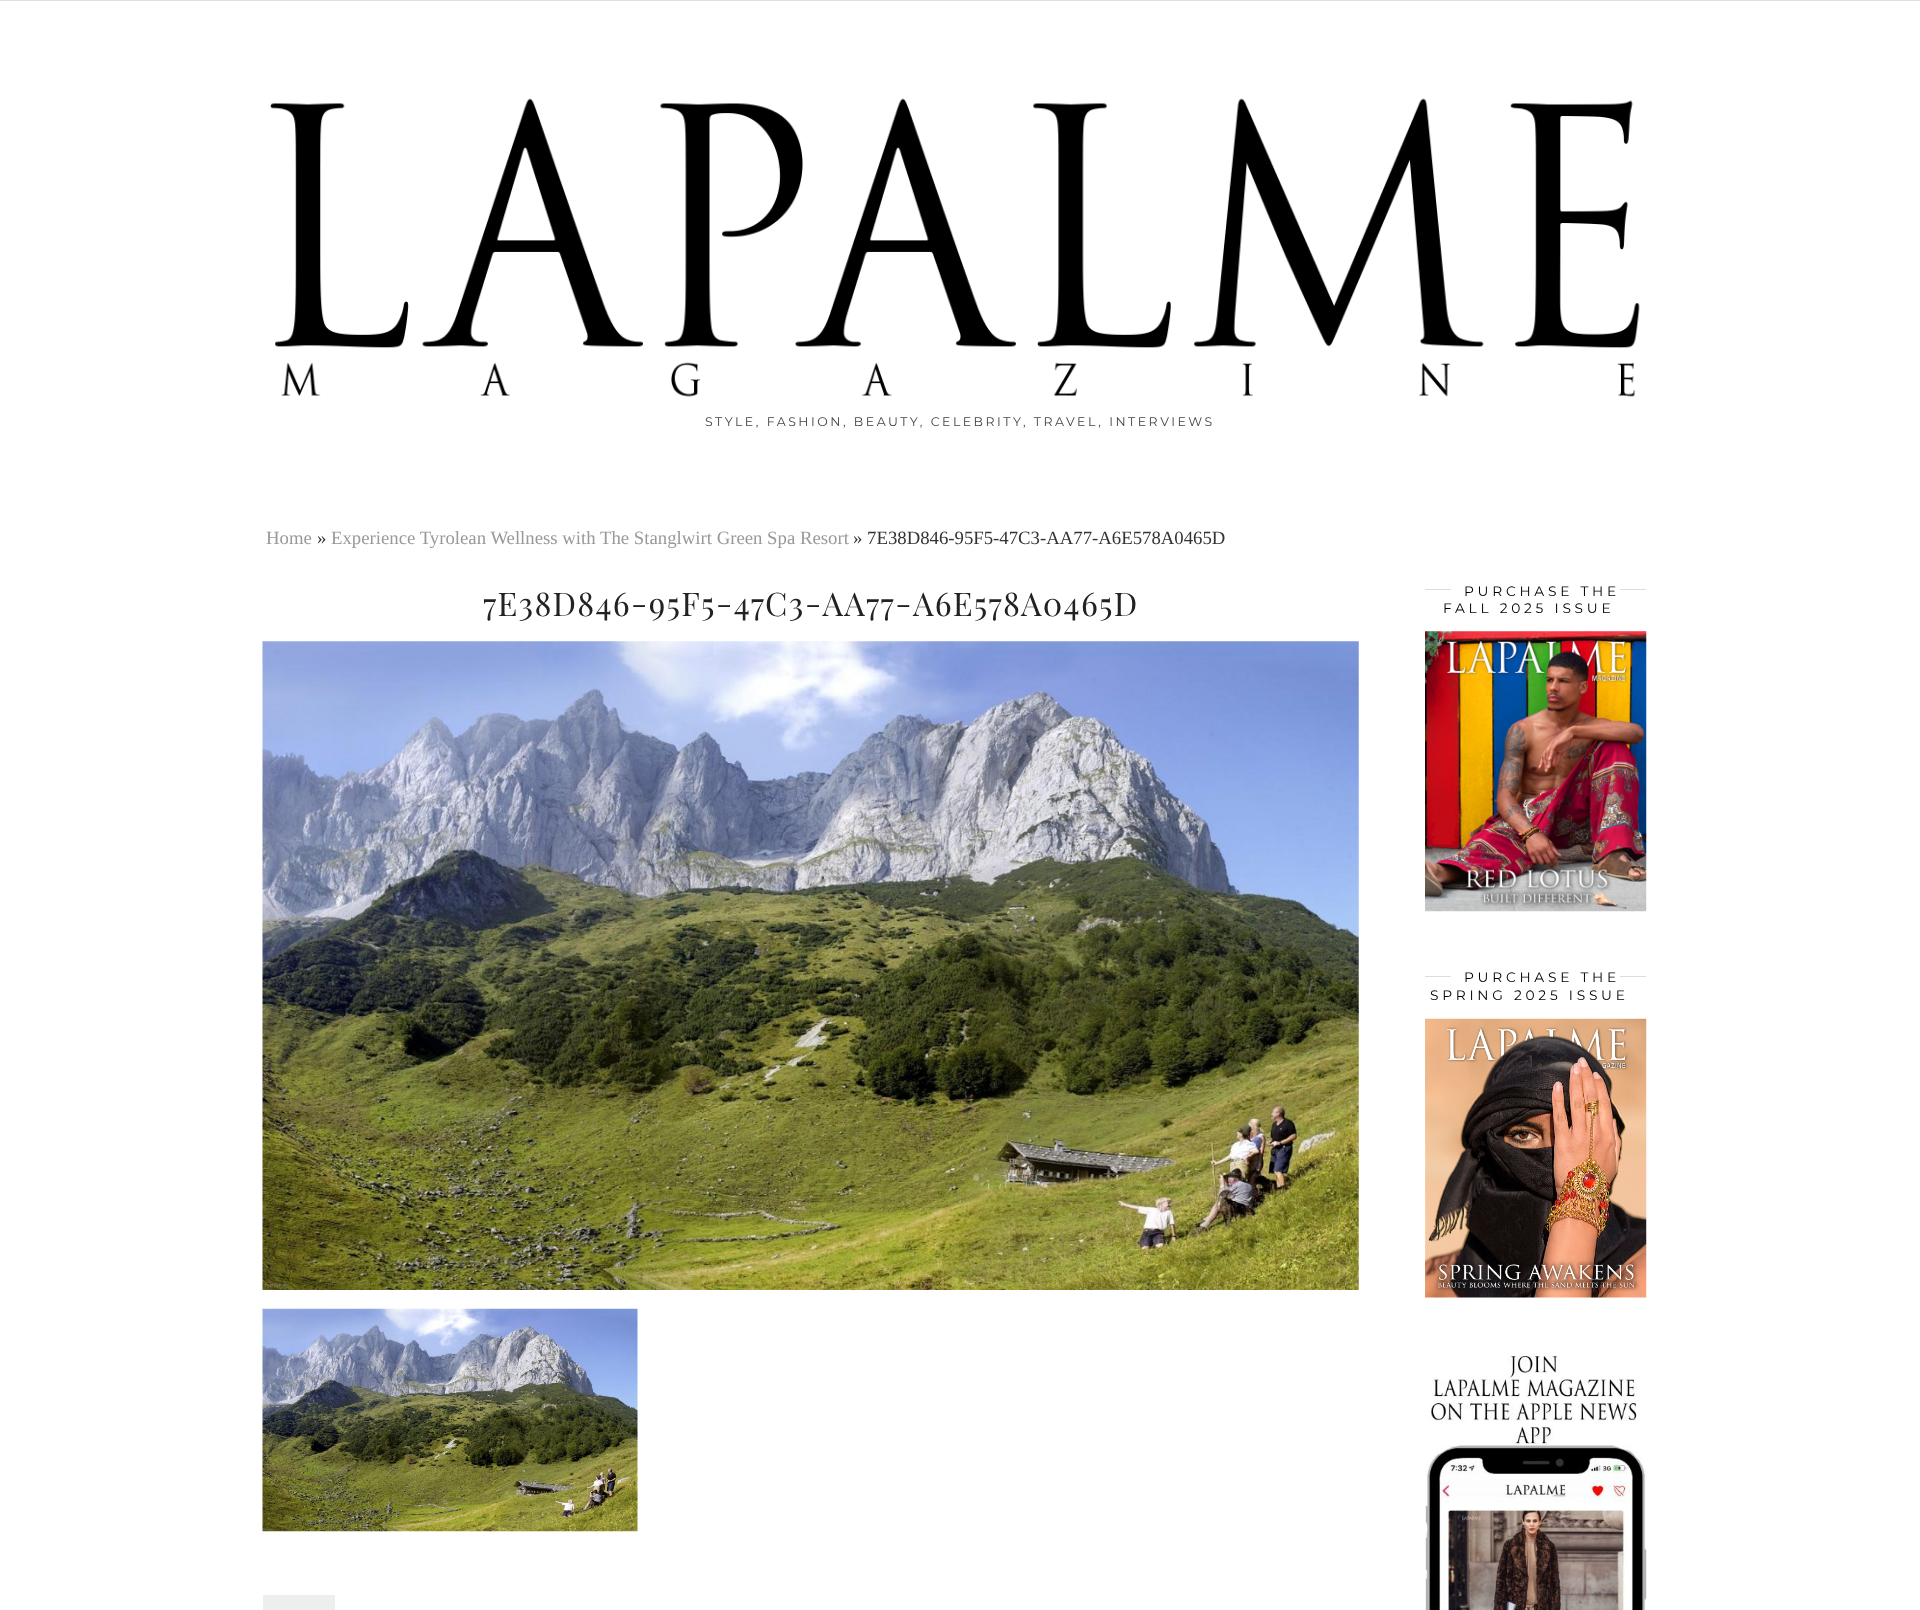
<!DOCTYPE html>
<meta charset="utf-8">
<style>body { margin: 0 } canvas { display: block }</style>
<canvas id="canvas" width="1920" height="1610"></canvas>
<script type="module">
  const canvas = document.getElementById("canvas");
  const ctx = canvas.getContext("2d");
  ctx.miterLimit = 4;
  ctx.fontKerning = "normal";
  async function loadImage(src) {
    const img = new Image();
    img.src = src;
    await img.decode();
    return img;
  }

  ctx.fillStyle = "#ffffff";
  ctx.fillRect(0, 0, 1920, 1610);
  ctx.fillStyle = "#dfdfdf";
  ctx.fillRect(0, 0, 1920, 1);
  ctx.drawImage(await loadImage("img1.png"), 270, 98, 1370, 299);
  ctx.letterSpacing = "2.5px";
  ctx.font = "100 12.5px Montserrat";
  ctx.fillStyle = "#444444";
  ctx.fillText("STYLE, FASHION, BEAUTY, CELEBRITY, TRAVEL, INTERVIEWS", 705, 426);
  ctx.letterSpacing = "0px";
  ctx.font = "18.75px Liberation Serif";
  ctx.fillStyle = "#999999";
  ctx.fillText("Home", 266, 544);
  ctx.fillStyle = "#333333";
  ctx.fillText("»", 317, 544);
  ctx.fillStyle = "#999999";
  ctx.fillText("Experience Tyrolean Wellness with The Stanglwirt Green Spa Resort", 331, 544);
  ctx.fillStyle = "#333333";
  ctx.fillText("» 7E38D846-95F5-47C3-AA77-A6E578A0465D", 853, 544);
  ctx.letterSpacing = "1.25px";
  ctx.font = "32.5px Playfair Display SC";
  ctx.fillStyle = "#222222";
  ctx.fillText("7E38D846-95F5-47C3-AA77-A6E578A0465D", 483, 616);
  ctx.drawImage(await loadImage("img2.png"), 262, 641, 1097, 649);
  ctx.drawImage(await loadImage("img3.png"), 262, 1308, 376, 224);
  ctx.fillStyle = "#eeeeee";
  ctx.fillRect(263, 1595, 72, 15);
  ctx.fillStyle = "#dddddd";
  ctx.fillRect(1425, 589, 221, 1);
  ctx.fillStyle = "#ffffff";
  ctx.fillRect(1451, 589, 169, 1);
  ctx.letterSpacing = "3.75px";
  ctx.font = "100 13.75px Montserrat";
  ctx.fillStyle = "#000000";
  ctx.fillText("PURCHASE THE", 1464, 596);
  ctx.fillText("FALL 2025 ISSUE", 1443, 613);
  ctx.drawImage(await loadImage("img4.png"), 1425, 631, 222, 281);
  ctx.fillStyle = "#dddddd";
  ctx.fillRect(1425, 976, 221, 1);
  ctx.fillStyle = "#ffffff";
  ctx.fillRect(1451, 976, 169, 1);
  ctx.fillStyle = "#000000";
  ctx.fillText("PURCHASE THE", 1464, 982);
  ctx.fillText("SPRING 2025 ISSUE", 1430, 1000);
  ctx.drawImage(await loadImage("img5.png"), 1425, 1018, 222, 280);
  ctx.drawImage(await loadImage("img6.png"), 1425, 1356, 222, 254);
</script>
